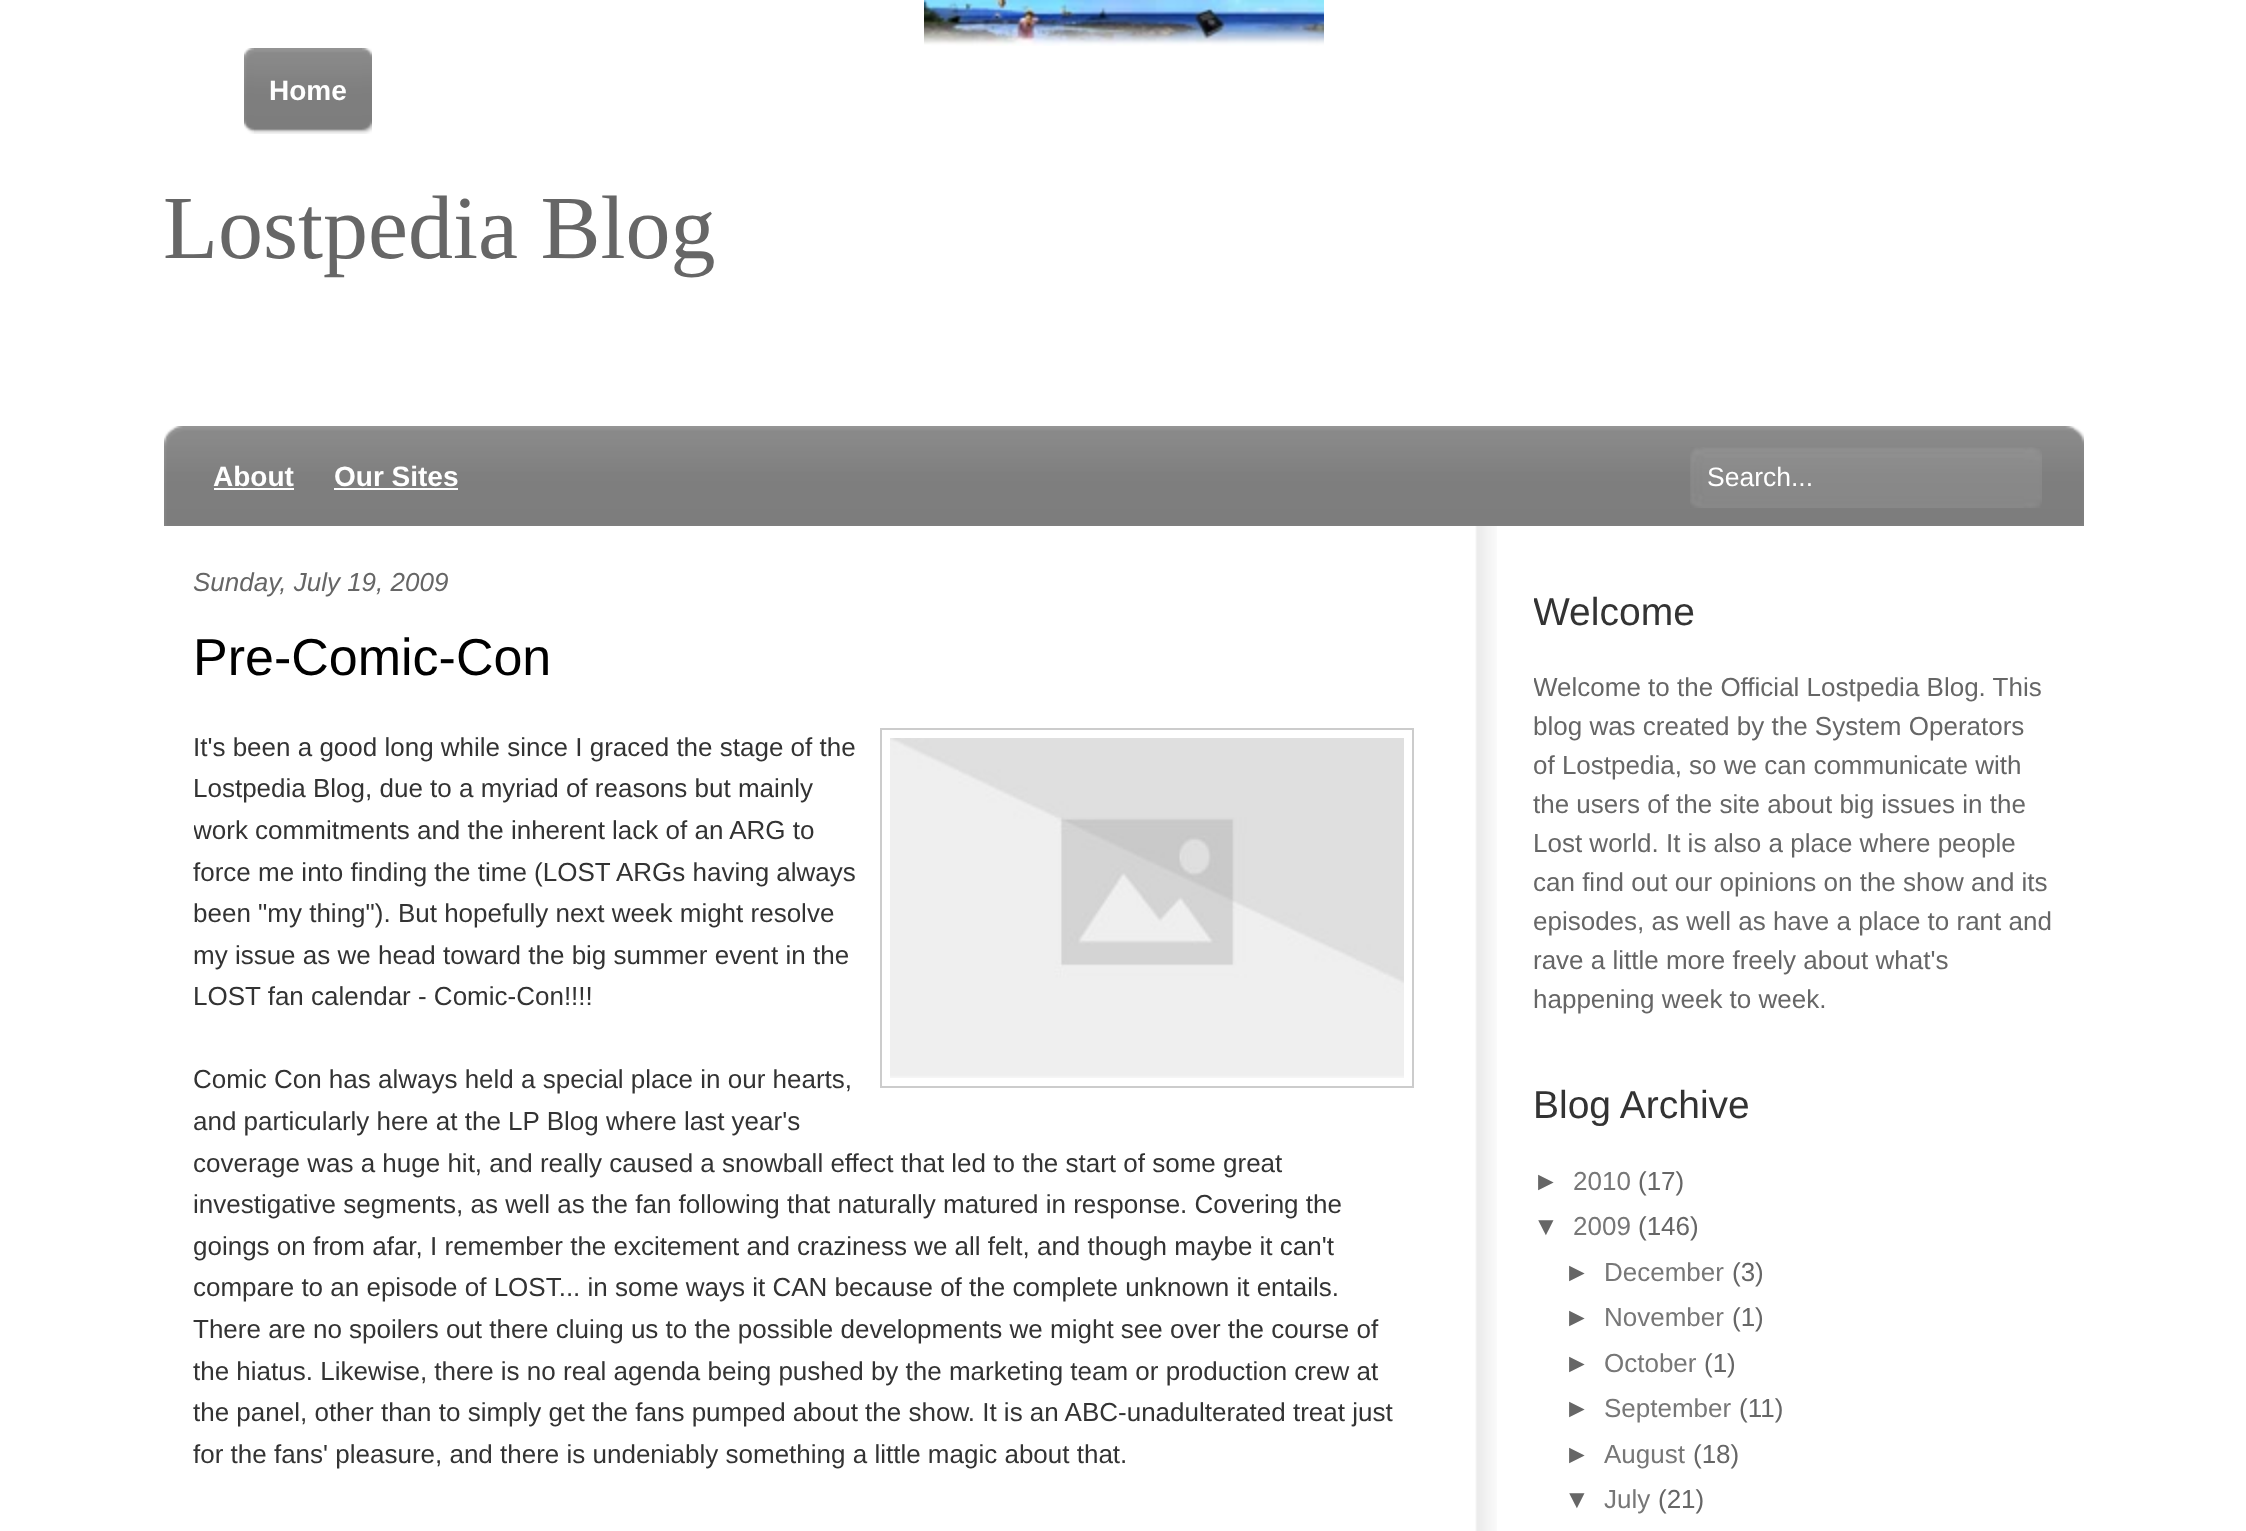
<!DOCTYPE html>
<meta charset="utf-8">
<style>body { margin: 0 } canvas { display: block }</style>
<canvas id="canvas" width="2246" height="1531"></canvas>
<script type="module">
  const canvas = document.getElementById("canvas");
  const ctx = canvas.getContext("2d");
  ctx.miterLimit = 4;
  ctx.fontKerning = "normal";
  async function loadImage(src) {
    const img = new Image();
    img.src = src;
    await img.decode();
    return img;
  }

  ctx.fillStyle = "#ffffff";
  ctx.fillRect(0, 0, 2246, 1531);
  ctx.drawImage(await loadImage("img1.png"), 924, 0, 400, 46);
  ctx.drawImage(await loadImage("img2.png"), 254, 48, 108, 86);
  ctx.drawImage(await loadImage("img3.png"), 244, 48, 10, 86);
  ctx.font = "bold 28px Liberation Sans";
  ctx.fillText("Home", 269, 100);
  ctx.drawImage(await loadImage("img4.png"), 362, 48, 10, 86);
  ctx.font = "90px Liberation Serif";
  ctx.fillStyle = "#666666";
  ctx.fillText("Lostpedia Blog", 163, 258);
  ctx.drawImage(await loadImage("img5.png"), 164, 426, 1920, 100);
  ctx.font = "bold 28px Liberation Sans";
  ctx.fillStyle = "#ffffff";
  ctx.fillText("About", 213, 486);
  ctx.fillRect(214, 488, 80, 2);
  ctx.fillText("Our Sites", 334, 486);
  ctx.fillRect(334, 488, 124, 2);
  ctx.drawImage(await loadImage("img6.png"), 1690, 447, 352, 61);
  ctx.font = "26.5px Liberation Sans";
  ctx.fillText("Search...", 1707, 486);
  ctx.drawImage(await loadImage("img7.png"), 1475, 526, 22, 1005);
  ctx.font = "italic 26px Liberation Sans";
  ctx.fillStyle = "#666666";
  ctx.fillText("Sunday, July 19, 2009", 193, 591);
  ctx.font = "52px Liberation Sans";
  ctx.fillStyle = "#000000";
  ctx.fillText("Pre-Comic-Con", 193, 675);
  ctx.font = "26px Liberation Sans";
  ctx.fillStyle = "#333333";
  ctx.fillText("It's been a good long while since I graced the stage of the", 193, 756);
  ctx.strokeStyle = "#cccccc";
  ctx.lineWidth = 2;
  ctx.strokeRect(881, 729, 532, 358);
  ctx.drawImage(await loadImage("img8.png"), 890, 738, 514, 340);
  ctx.fillText("Lostpedia Blog, due to a myriad of reasons but mainly", 193, 797);
  ctx.save();
  ctx.beginPath();
  ctx.rect(194, 526, 1220, 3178);
  ctx.clip();
  ctx.fillText("work commitments and the inherent lack of an ARG to", 193, 839);
  ctx.restore();
  ctx.fillText("force me into finding the time (LOST ARGs having always", 193, 881);
  ctx.fillText("been \"my thing\"). But hopefully next week might resolve", 193, 922);
  ctx.fillText("my issue as we head toward the big summer event in the", 193, 964);
  ctx.fillText("LOST fan calendar - Comic-Con!!!!", 193, 1005);
  ctx.fillText("Comic Con has always held a special place in our hearts,", 193, 1088);
  ctx.fillText("and particularly here at the LP Blog where last year's", 193, 1130);
  ctx.fillText("coverage was a huge hit, and really caused a snowball effect that led to the start of some great", 193, 1172);
  ctx.fillText("investigative segments, as well as the fan following that naturally matured in response. Covering the", 193, 1213);
  ctx.fillText("goings on from afar, I remember the excitement and craziness we all felt, and though maybe it can't", 193, 1255);
  ctx.fillText("compare to an episode of LOST... in some ways it CAN because of the complete unknown it entails.", 193, 1296);
  ctx.fillText("There are no spoilers out there cluing us to the possible developments we might see over the course of", 193, 1338);
  ctx.fillText("the hiatus. Likewise, there is no real agenda being pushed by the marketing team or production crew at", 193, 1380);
  ctx.fillText("the panel, other than to simply get the fans pumped about the show. It is an ABC-unadulterated treat just", 193, 1421);
  ctx.fillText("for the fans' pleasure, and there is undeniably something a little magic about that.", 193, 1463);
  ctx.save();
  ctx.beginPath();
  ctx.rect(1534, 526, 520, 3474);
  ctx.clip();
  ctx.font = "39px Liberation Sans";
  ctx.fillText("Welcome", 1533, 625);
  ctx.font = "26px Liberation Sans";
  ctx.fillStyle = "#666666";
  ctx.fillText("Welcome to the Official Lostpedia Blog. This", 1533, 696);
  ctx.restore();
  ctx.fillStyle = "#666666";
  ctx.fillText("blog was created by the System Operators", 1533, 735);
  ctx.fillText("of Lostpedia, so we can communicate with", 1533, 774);
  ctx.fillText("the users of the site about big issues in the", 1533, 813);
  ctx.fillText("Lost world. It is also a place where people", 1533, 852);
  ctx.fillText("can find out our opinions on the show and its", 1533, 891);
  ctx.fillText("episodes, as well as have a place to rant and", 1533, 930);
  ctx.fillText("rave a little more freely about what's", 1533, 969);
  ctx.fillText("happening week to week.", 1533, 1008);
  ctx.font = "39px Liberation Sans";
  ctx.fillStyle = "#333333";
  ctx.fillText("Blog Archive", 1533, 1118);
  ctx.font = "26px Liberation Sans";
  ctx.fillStyle = "#666666";
  ctx.fillText("►", 1533, 1190);
  ctx.fillStyle = "#777777";
  ctx.fillText("2010", 1573, 1190);
  ctx.fillStyle = "#666666";
  ctx.fillText("(17)", 1638, 1190);
  ctx.fillText("▼", 1533, 1235);
  ctx.fillStyle = "#777777";
  ctx.fillText("2009", 1573, 1235);
  ctx.fillStyle = "#666666";
  ctx.fillText("(146)", 1638, 1235);
  ctx.fillText("►", 1564, 1281);
  ctx.fillStyle = "#777777";
  ctx.fillText("December", 1604, 1281);
  ctx.fillStyle = "#666666";
  ctx.fillText("(3)", 1732, 1281);
  ctx.fillText("►", 1564, 1326);
  ctx.fillStyle = "#777777";
  ctx.fillText("November", 1604, 1326);
  ctx.fillStyle = "#666666";
  ctx.fillText("(1)", 1732, 1326);
  ctx.fillText("►", 1564, 1372);
  ctx.fillStyle = "#777777";
  ctx.fillText("October", 1604, 1372);
  ctx.fillStyle = "#666666";
  ctx.fillText("(1)", 1704, 1372);
  ctx.fillText("►", 1564, 1417);
  ctx.fillStyle = "#777777";
  ctx.fillText("September", 1604, 1417);
  ctx.fillStyle = "#666666";
  ctx.fillText("(11)", 1739, 1417);
  ctx.fillText("►", 1564, 1463);
  ctx.fillStyle = "#777777";
  ctx.fillText("August", 1604, 1463);
  ctx.fillStyle = "#666666";
  ctx.fillText("(18)", 1693, 1463);
  ctx.fillText("▼", 1564, 1508);
  ctx.fillStyle = "#777777";
  ctx.fillText("July", 1604, 1508);
  ctx.fillStyle = "#666666";
  ctx.fillText("(21)", 1658, 1508);
</script>
